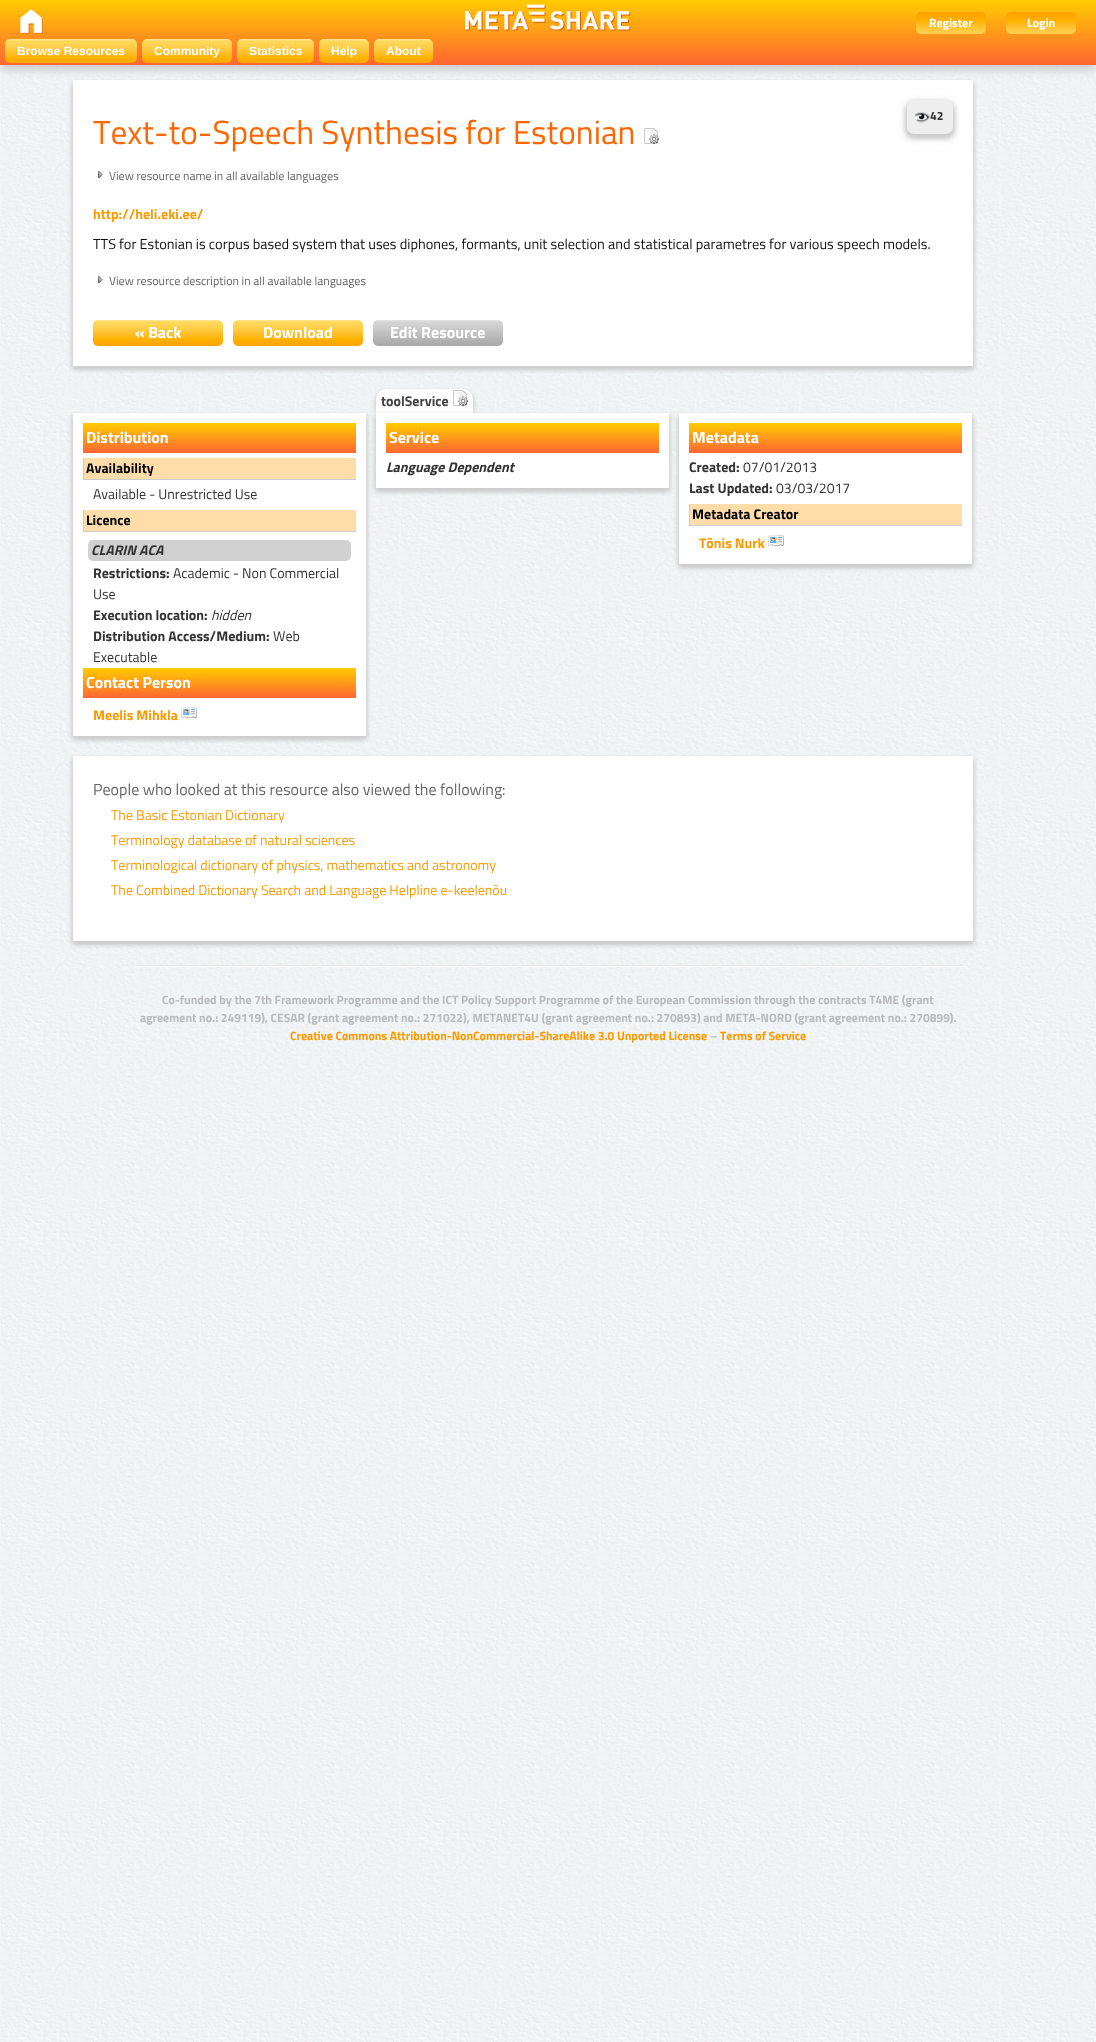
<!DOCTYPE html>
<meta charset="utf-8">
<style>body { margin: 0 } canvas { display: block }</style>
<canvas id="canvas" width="1096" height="2042"></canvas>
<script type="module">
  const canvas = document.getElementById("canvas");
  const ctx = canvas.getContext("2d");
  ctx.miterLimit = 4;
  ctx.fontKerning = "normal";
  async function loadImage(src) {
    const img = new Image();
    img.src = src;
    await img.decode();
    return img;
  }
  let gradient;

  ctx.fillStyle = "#ffffff";
  ctx.fillRect(0, 0, 1096, 2042);
  ctx.drawImage(await loadImage("img1.png"), 0, 65, 1096, 1977);
  ctx.fillStyle = "#cccccc";
  ctx.filter = "blur(2.5px)";
  ctx.beginPath();
  ctx.rect(72, 83, 900, 286);
  ctx.fill();
  ctx.filter = "none";
  ctx.filter = "blur(2.5px)";
  ctx.beginPath();
  ctx.rect(74, 83, 900, 286);
  ctx.fill();
  ctx.filter = "none";
  ctx.fillStyle = "#ffffff";
  ctx.fillRect(73, 80, 900, 286);
  ctx.fillStyle = "#cccccc";
  ctx.filter = "blur(5px)";
  ctx.beginPath();
  ctx.rect(0, 5, 1096, 65);
  ctx.fill();
  ctx.filter = "none";
  gradient = ctx.createLinearGradient(0, 0, 0, 65);
  gradient.addColorStop(0, "#ffcc00");
  gradient.addColorStop(1, "#ff6633");
  ctx.fillStyle = gradient;
  ctx.fillRect(0, 0, 1096, 65);
  ctx.drawImage(await loadImage("img2.png"), 20, 9, 23, 25);
  ctx.drawImage(await loadImage("img3.png"), 465, 4, 166, 27);
  ctx.drawImage(await loadImage("img4.png"), 916, 12, 70, 22);
  ctx.font = "bold 12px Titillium";
  ctx.fillStyle = "#ffffff";
  ctx.fillText("Register", 929, 27);
  ctx.drawImage(await loadImage("img5.png"), 1006, 12, 70, 22);
  ctx.fillText("Login", 1027, 27);
  ctx.drawImage(await loadImage("img6.png"), 5, 39, 132, 24);
  ctx.font = "bold 12px Liberation Sans";
  ctx.fillText("Browse Resources", 17, 55);
  ctx.drawImage(await loadImage("img7.png"), 142, 39, 90, 24);
  ctx.fillText("Community", 154, 55);
  ctx.drawImage(await loadImage("img8.png"), 237, 39, 77, 24);
  ctx.fillText("Statistics", 249, 55);
  ctx.drawImage(await loadImage("img9.png"), 319, 39, 50, 24);
  ctx.fillText("Help", 331, 55);
  ctx.drawImage(await loadImage("img10.png"), 374, 39, 59, 24);
  ctx.fillText("About", 386, 55);
  ctx.fillStyle = "#cccccc";
  ctx.filter = "blur(2.5px)";
  ctx.beginPath();
  ctx.roundRect(906, 103, 46, 34, 7);
  ctx.fill();
  ctx.filter = "none";
  ctx.filter = "blur(2.5px)";
  ctx.beginPath();
  ctx.roundRect(908, 103, 46, 34, 7);
  ctx.fill();
  ctx.filter = "none";
  ctx.filter = "blur(5px)";
  ctx.beginPath();
  ctx.roundRect(907, 103, 46, 34, 7);
  ctx.fill();
  ctx.filter = "none";
  ctx.fillStyle = "#eeeeee";
  ctx.beginPath();
  ctx.roundRect(907, 100, 46, 34, 7);
  ctx.fill();
  ctx.drawImage(await loadImage("img11.png"), 914, 112, 16, 11);
  ctx.font = "bold 12px Titillium";
  ctx.fillStyle = "#333333";
  ctx.fillText("42", 930, 120);
  ctx.font = "33.3px Titillium";
  ctx.fillStyle = "#ff6600";
  ctx.fillText("Text-to-Speech Synthesis for Estonian", 93, 144);
  ctx.drawImage(await loadImage("img12.png"), 644, 128, 15, 16);
  ctx.drawImage(await loadImage("img13.png"), 98, 171, 5, 7);
  ctx.font = "12px Titillium";
  ctx.fillStyle = "#666666";
  ctx.fillText("View resource name in all available languages", 109, 180);
  ctx.font = "bold 14px Titillium";
  ctx.fillStyle = "#ff9900";
  ctx.fillText("http://heli.eki.ee/", 93, 219);
  ctx.font = "14.4px Titillium";
  ctx.fillStyle = "#111111";
  ctx.fillText("TTS for Estonian is corpus based system that uses diphones, formants, unit selection and statistical parametres for various speech models.", 93, 249);
  ctx.drawImage(await loadImage("img13.png"), 98, 276, 5, 7);
  ctx.font = "12px Titillium";
  ctx.fillStyle = "#666666";
  ctx.fillText("View resource description in all available languages", 109, 285);
  ctx.drawImage(await loadImage("img14.png"), 93, 320, 130, 26);
  ctx.font = "bold 16px Titillium";
  ctx.fillStyle = "#ffffff";
  ctx.fillText("« Back", 135, 338);
  ctx.drawImage(await loadImage("img15.png"), 233, 320, 130, 26);
  ctx.fillText("Download", 263, 338);
  ctx.drawImage(await loadImage("img16.png"), 373, 320, 130, 26);
  ctx.fillText("Edit Resource", 390, 338);
  ctx.fillStyle = "#cccccc";
  ctx.filter = "blur(2.5px)";
  ctx.beginPath();
  ctx.rect(72, 416, 293, 323);
  ctx.fill();
  ctx.filter = "none";
  ctx.filter = "blur(2.5px)";
  ctx.beginPath();
  ctx.rect(74, 416, 293, 323);
  ctx.fill();
  ctx.filter = "none";
  ctx.fillStyle = "#ffffff";
  ctx.fillRect(73, 413, 293, 323);
  gradient = ctx.createLinearGradient(83, 423, 83, 453);
  gradient.addColorStop(0, "#ffcc00");
  gradient.addColorStop(1, "#ff6633");
  ctx.fillStyle = gradient;
  ctx.fillRect(83, 423, 273, 30);
  ctx.fillStyle = "#ffffff";
  ctx.fillText("Distribution", 86, 443);
  ctx.fillStyle = "#ffddaa";
  ctx.fillRect(84, 458, 272, 21);
  ctx.fillStyle = "#cccccc";
  ctx.fillRect(83, 479, 273, 1);
  ctx.fillRect(83, 458, 1, 22);
  ctx.font = "bold 14px Titillium";
  ctx.fillStyle = "#000000";
  ctx.fillText("Availability", 86, 473);
  ctx.font = "14px Titillium";
  ctx.fillStyle = "#333333";
  ctx.fillText("Available - Unrestricted Use", 93, 499);
  ctx.fillStyle = "#ffddaa";
  ctx.fillRect(84, 510, 272, 21);
  ctx.fillStyle = "#cccccc";
  ctx.fillRect(83, 531, 273, 1);
  ctx.fillRect(83, 510, 1, 22);
  ctx.font = "bold 14px Titillium";
  ctx.fillStyle = "#000000";
  ctx.fillText("Licence", 86, 525);
  ctx.fillStyle = "#d1d1d1";
  ctx.beginPath();
  ctx.roundRect(88, 540, 263, 21, 5);
  ctx.fill();
  ctx.font = "italic bold 14px Titillium";
  ctx.fillStyle = "#333333";
  ctx.fillText("CLARIN ACA", 91, 555);
  ctx.font = "bold 14px Titillium";
  ctx.fillText("Restrictions:", 93, 578);
  ctx.font = "14px Titillium";
  ctx.fillText("Academic - Non Commercial", 173, 578);
  ctx.fillText("Use", 93, 599);
  ctx.font = "bold 14px Titillium";
  ctx.fillText("Execution location:", 93, 620);
  ctx.font = "italic 14px Titillium";
  ctx.fillText("hidden", 211, 620);
  ctx.font = "bold 14px Titillium";
  ctx.fillText("Distribution Access/Medium:", 93, 641);
  ctx.font = "14px Titillium";
  ctx.fillText("Web", 273, 641);
  ctx.fillText("Executable", 93, 662);
  gradient = ctx.createLinearGradient(83, 668, 83, 698);
  gradient.addColorStop(0, "#ffcc00");
  gradient.addColorStop(1, "#ff6633");
  ctx.fillStyle = gradient;
  ctx.fillRect(83, 668, 273, 30);
  ctx.font = "bold 16px Titillium";
  ctx.fillStyle = "#ffffff";
  ctx.fillText("Contact Person", 86, 688);
  ctx.font = "bold 14px Titillium";
  ctx.fillStyle = "#ff9900";
  ctx.fillText("Meelis Mihkla", 93, 720);
  ctx.drawImage(await loadImage("img17.png"), 181, 707, 16, 11);
  ctx.fillStyle = "#cccccc";
  ctx.filter = "blur(2.5px)";
  ctx.beginPath();
  ctx.roundRect(375, 392, 97, 24, 10);
  ctx.fill();
  ctx.filter = "none";
  ctx.filter = "blur(2.5px)";
  ctx.beginPath();
  ctx.roundRect(377, 392, 97, 24, 10);
  ctx.fill();
  ctx.filter = "none";
  ctx.fillStyle = "#ffffff";
  ctx.beginPath();
  ctx.roundRect(376, 389, 97, 24, [10, 10, 0, 0]);
  ctx.fill();
  ctx.fillStyle = "#444444";
  ctx.fillText("toolService", 381, 406);
  ctx.drawImage(await loadImage("img18.png"), 453, 390, 15, 16);
  ctx.fillStyle = "#cccccc";
  ctx.filter = "blur(2.5px)";
  ctx.beginPath();
  ctx.rect(375, 416, 293, 75);
  ctx.fill();
  ctx.filter = "none";
  ctx.filter = "blur(2.5px)";
  ctx.beginPath();
  ctx.rect(377, 416, 293, 75);
  ctx.fill();
  ctx.filter = "none";
  ctx.fillStyle = "#ffffff";
  ctx.fillRect(376, 413, 293, 75);
  gradient = ctx.createLinearGradient(386, 423, 386, 453);
  gradient.addColorStop(0, "#ffcc00");
  gradient.addColorStop(1, "#ff6633");
  ctx.fillStyle = gradient;
  ctx.fillRect(386, 423, 273, 30);
  ctx.font = "bold 16px Titillium";
  ctx.fillStyle = "#ffffff";
  ctx.fillText("Service", 389, 443);
  ctx.font = "italic bold 14px Titillium";
  ctx.fillStyle = "#333333";
  ctx.fillText("Language Dependent", 386, 472);
  ctx.fillStyle = "#cccccc";
  ctx.filter = "blur(2.5px)";
  ctx.beginPath();
  ctx.rect(678, 416, 293, 151);
  ctx.fill();
  ctx.filter = "none";
  ctx.filter = "blur(2.5px)";
  ctx.beginPath();
  ctx.rect(680, 416, 293, 151);
  ctx.fill();
  ctx.filter = "none";
  ctx.fillStyle = "#ffffff";
  ctx.fillRect(679, 413, 293, 151);
  gradient = ctx.createLinearGradient(689, 423, 689, 453);
  gradient.addColorStop(0, "#ffcc00");
  gradient.addColorStop(1, "#ff6633");
  ctx.fillStyle = gradient;
  ctx.fillRect(689, 423, 273, 30);
  ctx.font = "bold 16px Titillium";
  ctx.fillStyle = "#ffffff";
  ctx.fillText("Metadata", 692, 443);
  ctx.font = "bold 14px Titillium";
  ctx.fillStyle = "#333333";
  ctx.fillText("Created:", 689, 472);
  ctx.font = "14px Titillium";
  ctx.fillText("07/01/2013", 743, 472);
  ctx.font = "bold 14px Titillium";
  ctx.fillText("Last Updated:", 689, 493);
  ctx.font = "14px Titillium";
  ctx.fillText("03/03/2017", 776, 493);
  ctx.fillStyle = "#ffddaa";
  ctx.fillRect(690, 504, 272, 21);
  ctx.fillStyle = "#cccccc";
  ctx.fillRect(689, 525, 273, 1);
  ctx.fillRect(689, 504, 1, 22);
  ctx.font = "bold 14px Titillium";
  ctx.fillStyle = "#000000";
  ctx.fillText("Metadata Creator", 692, 519);
  ctx.fillStyle = "#ff9900";
  ctx.fillText("Tõnis Nurk", 699, 548);
  ctx.drawImage(await loadImage("img17.png"), 768, 535, 16, 11);
  ctx.fillStyle = "#cccccc";
  ctx.filter = "blur(2.5px)";
  ctx.beginPath();
  ctx.rect(72, 759, 900, 185);
  ctx.fill();
  ctx.filter = "none";
  ctx.filter = "blur(2.5px)";
  ctx.beginPath();
  ctx.rect(74, 759, 900, 185);
  ctx.fill();
  ctx.filter = "none";
  ctx.fillStyle = "#ffffff";
  ctx.fillRect(73, 756, 900, 185);
  ctx.font = "16px Titillium";
  ctx.fillStyle = "#666666";
  ctx.fillText("People who looked at this resource also viewed the following:", 93, 795);
  ctx.font = "14px Titillium";
  ctx.fillStyle = "#ff9900";
  ctx.fillText("The Basic Estonian Dictionary", 111, 820);
  ctx.fillText("Terminology database of natural sciences", 111, 845);
  ctx.fillText("Terminological dictionary of physics, mathematics and astronomy", 111, 870);
  ctx.fillText("The Combined Dictionary Search and Language Helpline e-keelenõu", 111, 895);
  ctx.drawImage(await loadImage("img19.png"), 135, 965, 827, 2);
  ctx.font = "bold 12px Titillium";
  ctx.fillStyle = "#bbbbbb";
  ctx.fillText("Co-funded by the 7th Framework Programme and the ICT Policy Support Programme of the European Commission through the contracts T4ME (grant", 162, 1004);
  ctx.fillText("agreement no.: 249119), CESAR (grant agreement no.: 271022), METANET4U (grant agreement no.: 270893) and META-NORD (grant agreement no.: 270899).", 140, 1022);
  ctx.fillStyle = "#ff9900";
  ctx.fillText("Creative Commons Attribution-NonCommercial-ShareAlike 3.0 Unported License", 290, 1040);
  ctx.fillStyle = "#bbbbbb";
  ctx.fillText("–", 710, 1040);
  ctx.fillStyle = "#ff9900";
  ctx.fillText("Terms of Service", 720, 1040);
</script>
